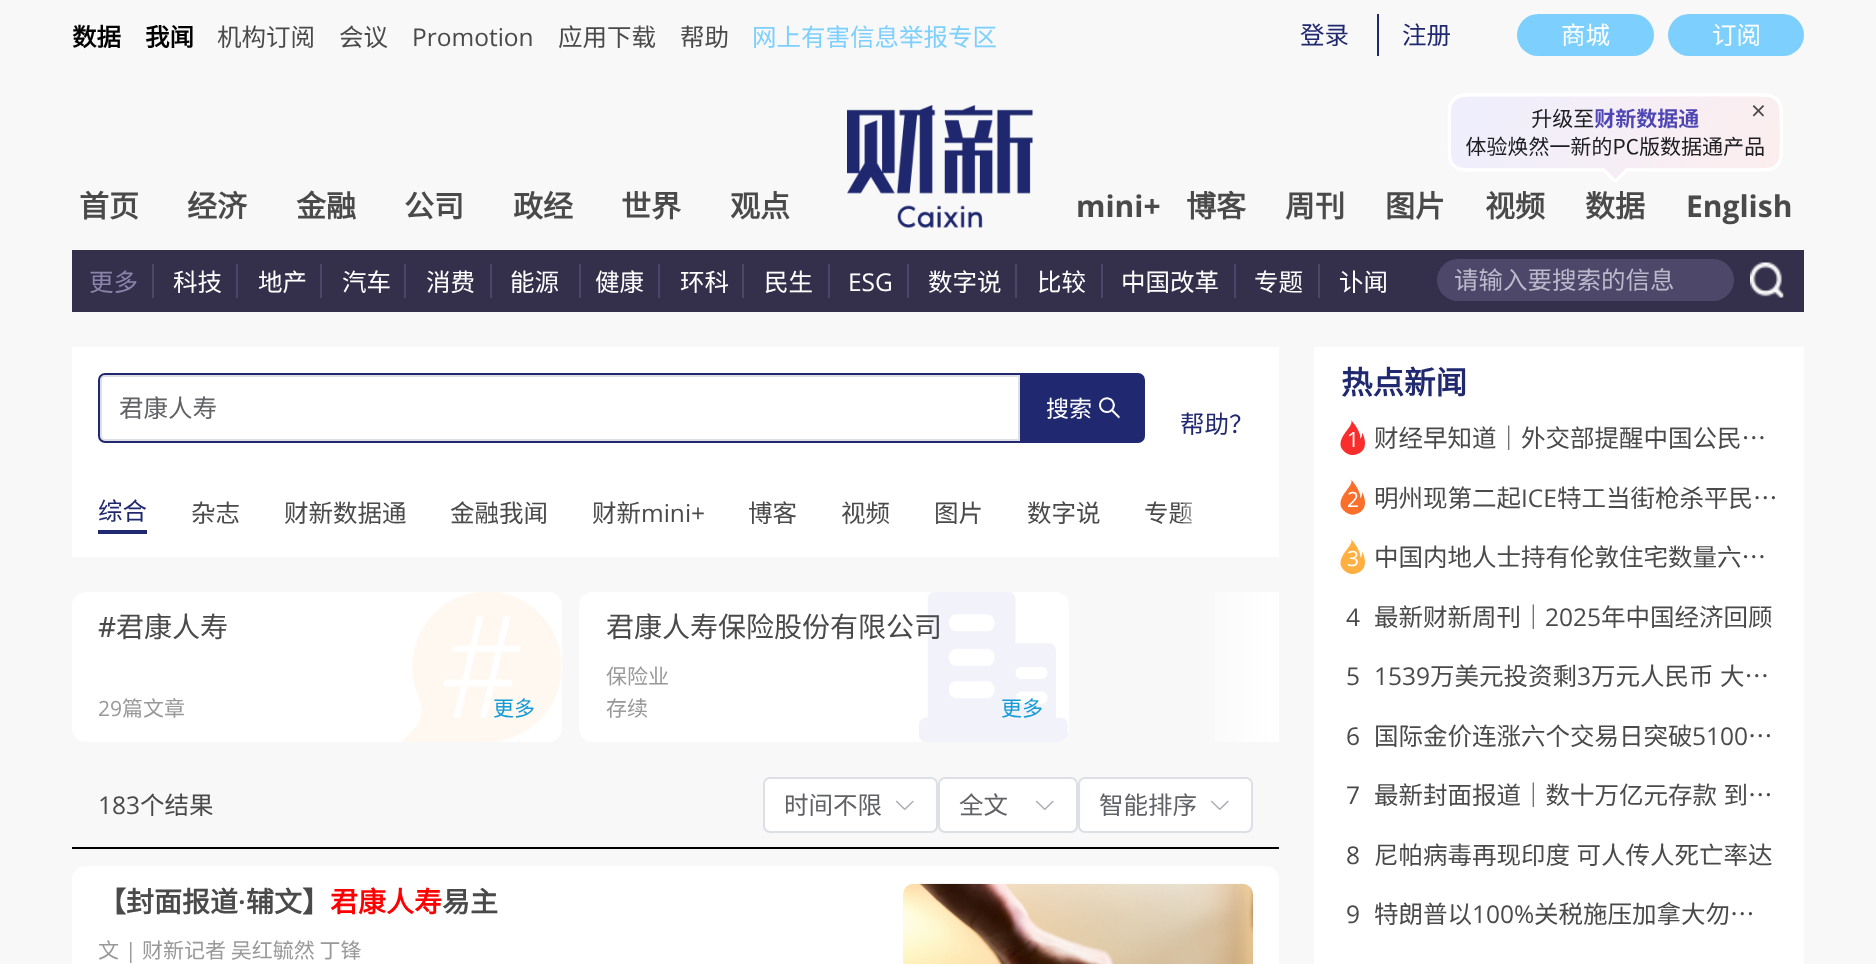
<!DOCTYPE html>
<meta charset="utf-8">
<style>body { margin: 0 } canvas { display: block }</style>
<canvas id="canvas" width="1876" height="964"></canvas>
<script type="module">
  const canvas = document.getElementById("canvas");
  const ctx = canvas.getContext("2d");
  ctx.miterLimit = 4;
  ctx.fontKerning = "normal";
  async function loadImage(src) {
    const img = new Image();
    img.src = src;
    await img.decode();
    return img;
  }
  let gradient;

  ctx.fillStyle = "#f8f8f8";
  ctx.fillRect(0, 0, 1876, 964);
  ctx.font = "bold 24.5px Noto Sans CJK SC";
  ctx.fillStyle = "#000000";
  ctx.fillText("数据", 72, 46);
  ctx.fillText("我闻", 145, 46);
  ctx.font = "24.5px Noto Sans CJK SC";
  ctx.fillStyle = "#4a4a4a";
  ctx.fillText("机构订阅", 217, 46);
  ctx.fillText("会议", 339, 46);
  ctx.font = "24.5px Open Sans";
  ctx.fillText("Promotion", 412, 46);
  ctx.font = "24.5px Noto Sans CJK SC";
  ctx.fillText("应用下载", 558, 46);
  ctx.fillText("帮助", 680, 46);
  ctx.fillStyle = "#7dd0fd";
  ctx.fillText("网上有害信息举报专区", 752, 46);
  ctx.fillStyle = "#20296f";
  ctx.fillText("登录", 1300, 44);
  ctx.fillStyle = "#1c2b6b";
  ctx.fillRect(1377, 14, 2, 42);
  ctx.fillStyle = "#20296f";
  ctx.fillText("注册", 1402, 44);
  ctx.fillStyle = "#7dd0fd";
  ctx.beginPath();
  ctx.roundRect(1517, 14, 137, 42, 21);
  ctx.fill();
  ctx.fillStyle = "#ffffff";
  ctx.fillText("商城", 1561, 44);
  ctx.fillStyle = "#7dd0fd";
  ctx.beginPath();
  ctx.roundRect(1668, 14, 136, 42, 21);
  ctx.fill();
  ctx.fillStyle = "#ffffff";
  ctx.fillText("订阅", 1712, 44);
  ctx.font = "bold 30px Noto Sans CJK SC";
  ctx.fillStyle = "#4a4a4a";
  ctx.fillText("首页", 79, 217);
  ctx.fillText("经济", 187, 217);
  ctx.fillText("金融", 296, 217);
  ctx.fillText("公司", 404, 217);
  ctx.fillText("政经", 513, 217);
  ctx.fillText("世界", 621, 217);
  ctx.fillText("观点", 730, 217);
  ctx.drawImage(await loadImage("img1.png"), 847, 105, 186, 123);
  ctx.font = "bold 30px Open Sans";
  ctx.fillText("mini+", 1076, 217);
  ctx.font = "bold 30px Noto Sans CJK SC";
  ctx.fillText("博客", 1186, 217);
  ctx.fillText("周刊", 1285, 217);
  ctx.fillText("图片", 1385, 217);
  ctx.fillText("视频", 1485, 217);
  ctx.fillText("数据", 1585, 217);
  ctx.font = "bold 30px Open Sans";
  ctx.fillText("English", 1686, 217);
  ctx.fillStyle = "#34304c";
  ctx.fillRect(72, 250, 1732, 62);
  ctx.font = "24.5px Noto Sans CJK SC";
  ctx.fillStyle = "#8984aa";
  ctx.fillText("更多", 89, 291);
  ctx.fillStyle = "#4c466b";
  ctx.fillRect(152, 264, 2, 34);
  ctx.fillStyle = "#ffffff";
  ctx.fillText("科技", 173, 291);
  ctx.fillStyle = "#4c466b";
  ctx.fillRect(236, 264, 2, 34);
  ctx.fillStyle = "#ffffff";
  ctx.fillText("地产", 258, 291);
  ctx.fillStyle = "#4c466b";
  ctx.fillRect(320, 264, 2, 34);
  ctx.fillStyle = "#ffffff";
  ctx.fillText("汽车", 342, 291);
  ctx.fillStyle = "#4c466b";
  ctx.fillRect(404, 264, 2, 34);
  ctx.fillStyle = "#ffffff";
  ctx.fillText("消费", 426, 291);
  ctx.fillStyle = "#4c466b";
  ctx.fillRect(490, 264, 2, 34);
  ctx.fillStyle = "#ffffff";
  ctx.fillText("能源", 510, 291);
  ctx.fillStyle = "#4c466b";
  ctx.fillRect(579, 264, 2, 34);
  ctx.fillStyle = "#ffffff";
  ctx.fillText("健康", 595, 291);
  ctx.fillStyle = "#4c466b";
  ctx.fillRect(658, 264, 2, 34);
  ctx.fillStyle = "#ffffff";
  ctx.fillText("环科", 680, 291);
  ctx.fillStyle = "#4c466b";
  ctx.fillRect(742, 264, 2, 34);
  ctx.fillStyle = "#ffffff";
  ctx.fillText("民生", 764, 291);
  ctx.fillStyle = "#4c466b";
  ctx.fillRect(828, 264, 2, 34);
  ctx.font = "24.5px Open Sans";
  ctx.fillStyle = "#ffffff";
  ctx.fillText("ESG", 848, 291);
  ctx.fillStyle = "#4c466b";
  ctx.fillRect(907, 264, 2, 34);
  ctx.font = "24.5px Noto Sans CJK SC";
  ctx.fillStyle = "#ffffff";
  ctx.fillText("数字说", 928, 291);
  ctx.fillStyle = "#4c466b";
  ctx.fillRect(1015, 264, 2, 34);
  ctx.fillStyle = "#ffffff";
  ctx.fillText("比较", 1037, 291);
  ctx.fillStyle = "#4c466b";
  ctx.fillRect(1101, 264, 2, 34);
  ctx.fillStyle = "#ffffff";
  ctx.fillText("中国改革", 1121, 291);
  ctx.fillStyle = "#4c466b";
  ctx.fillRect(1234, 264, 2, 34);
  ctx.fillStyle = "#ffffff";
  ctx.fillText("专题", 1254, 291);
  ctx.fillStyle = "#4c466b";
  ctx.fillRect(1318, 264, 2, 34);
  ctx.fillStyle = "#ffffff";
  ctx.fillText("讣闻", 1339, 291);
  ctx.fillStyle = "#4d486a";
  ctx.beginPath();
  ctx.roundRect(1437, 259, 297, 42, 21);
  ctx.fill();
  ctx.fillStyle = "#bbb8cb";
  ctx.fillText("请输入要搜索的信息", 1454, 289);
  ctx.drawImage(await loadImage("img2.png"), 1750, 262, 34, 36);
  ctx.fillStyle = "#ffffff";
  ctx.fillRect(72, 347, 1207, 210);
  ctx.beginPath();
  ctx.roundRect(101, 376, 918, 64, [4, 0, 0, 4]);
  ctx.strokeStyle = "#dcdfe6";
  ctx.lineWidth = 2;
  ctx.stroke();
  ctx.beginPath();
  ctx.roundRect(99, 374, 922, 68, [6, 0, 0, 6]);
  ctx.strokeStyle = "#20296f";
  ctx.stroke();
  ctx.fillStyle = "#606266";
  ctx.fillText("君康人寿", 119, 417);
  ctx.fillStyle = "#20296f";
  ctx.beginPath();
  ctx.roundRect(1022, 373, 123, 70, [0, 7, 7, 0]);
  ctx.fill();
  ctx.font = "23px Noto Sans CJK SC";
  ctx.fillStyle = "#ffffff";
  ctx.fillText("搜索", 1046, 417);
  ctx.drawImage(await loadImage("img3.png"), 1099, 397, 21, 22);
  ctx.font = "24.5px Noto Sans CJK SC";
  ctx.fillStyle = "#20296f";
  ctx.fillText("帮助？", 1180, 433);
  ctx.fillRect(98, 530, 49, 4);
  ctx.fillText("综合", 98, 520);
  ctx.fillStyle = "#4a4a4a";
  ctx.fillText("杂志", 191, 522);
  ctx.fillText("财新数据通", 284, 522);
  ctx.fillText("金融我闻", 450, 522);
  ctx.fillText("财新", 592, 522);
  ctx.font = "24.5px Open Sans";
  ctx.fillText("mini+", 641, 522);
  ctx.font = "24.5px Noto Sans CJK SC";
  ctx.fillText("博客", 748, 522);
  ctx.fillText("视频", 841, 522);
  ctx.fillText("图片", 934, 522);
  ctx.fillText("数字说", 1027, 522);
  ctx.fillText("专题", 1144, 522);
  gradient = ctx.createLinearGradient(1183, 513, 1253, 513);
  gradient.addColorStop(0, "rgba(255, 255, 255, 0.3)");
  gradient.addColorStop(1, "#ffffff");
  ctx.fillStyle = gradient;
  ctx.fillRect(1183, 502, 9, 22);
  ctx.fillStyle = "#ffffff";
  ctx.beginPath();
  ctx.roundRect(72, 592, 490, 150, 14);
  ctx.fill();
  ctx.drawImage(await loadImage("img4.png"), 403, 592, 158, 150);
  ctx.font = "500 28px Open Sans";
  ctx.fillStyle = "#4a4a4a";
  ctx.fillText("#", 98, 637);
  ctx.font = "28px Noto Sans CJK SC";
  ctx.fillText("君康人寿", 116, 637);
  ctx.font = "21px Open Sans";
  ctx.fillStyle = "#999999";
  ctx.fillText("29", 98, 716);
  ctx.font = "21px Noto Sans CJK SC";
  ctx.fillText("篇文章", 122, 716);
  ctx.fillStyle = "#159bd5";
  ctx.fillText("更多", 493, 716);
  ctx.fillStyle = "#ffffff";
  ctx.beginPath();
  ctx.roundRect(579, 592, 490, 150, 14);
  ctx.fill();
  ctx.drawImage(await loadImage("img5.png"), 919, 592, 149, 150);
  ctx.font = "28px Noto Sans CJK SC";
  ctx.fillStyle = "#4a4a4a";
  ctx.fillText("君康人寿保险股份有限公司", 606, 637);
  ctx.font = "21px Noto Sans CJK SC";
  ctx.fillStyle = "#999999";
  ctx.fillText("保险业", 606, 684);
  ctx.fillText("存续", 606, 716);
  ctx.fillStyle = "#159bd5";
  ctx.fillText("更多", 1001, 716);
  gradient = ctx.createLinearGradient(1208, 667, 1279, 667);
  gradient.addColorStop(0, "#fafafa");
  gradient.addColorStop(1, "#ffffff");
  ctx.fillStyle = gradient;
  ctx.fillRect(1215, 592, 64, 150);
  ctx.fillStyle = "#000000";
  ctx.fillRect(72, 847, 1207, 2);
  ctx.font = "24.5px Open Sans";
  ctx.fillStyle = "#4a4a4a";
  ctx.fillText("183", 98, 814);
  ctx.font = "24.5px Noto Sans CJK SC";
  ctx.fillText("个结果", 140, 814);
  ctx.fillStyle = "#ffffff";
  ctx.beginPath();
  ctx.roundRect(764, 778, 173, 54, 6);
  ctx.fill();
  ctx.strokeStyle = "#dcdfe6";
  ctx.stroke();
  ctx.fillStyle = "#606266";
  ctx.fillText("时间不限", 784, 814);
  ctx.drawImage(await loadImage("img6.png"), 896, 800, 18, 10);
  ctx.fillStyle = "#ffffff";
  ctx.beginPath();
  ctx.roundRect(939, 778, 138, 54, 6);
  ctx.fill();
  ctx.stroke();
  ctx.fillStyle = "#606266";
  ctx.fillText("全文", 959, 814);
  ctx.drawImage(await loadImage("img6.png"), 1036, 800, 18, 10);
  ctx.fillStyle = "#ffffff";
  ctx.beginPath();
  ctx.roundRect(1079, 778, 173, 54, 6);
  ctx.fill();
  ctx.stroke();
  ctx.fillStyle = "#606266";
  ctx.fillText("智能排序", 1099, 814);
  ctx.drawImage(await loadImage("img6.png"), 1211, 800, 18, 10);
  ctx.fillStyle = "#ffffff";
  ctx.beginPath();
  ctx.roundRect(72, 866, 1207, 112, 14);
  ctx.fill();
  ctx.font = "bold 28px Noto Sans CJK SC";
  ctx.fillStyle = "#4a4a4a";
  ctx.fillText("【封面报道", 98, 912);
  ctx.font = "600 28px Open Sans";
  ctx.fillText("·", 238, 912);
  ctx.font = "bold 28px Noto Sans CJK SC";
  ctx.fillText("辅文】", 246, 912);
  ctx.fillStyle = "#ff0000";
  ctx.fillText("君康人寿", 330, 912);
  ctx.fillStyle = "#4a4a4a";
  ctx.fillText("易主", 442, 912);
  ctx.drawImage(await loadImage("img7.png"), 903, 883, 350, 81);
  ctx.font = "21px Noto Sans CJK SC";
  ctx.fillStyle = "#999999";
  ctx.fillText("文", 98, 958);
  ctx.font = "21px Open Sans";
  ctx.fillText("|", 125, 958);
  ctx.font = "21px Noto Sans CJK SC";
  ctx.fillText("财新记者 吴红毓然 丁锋", 142, 958);
  ctx.fillStyle = "#ffffff";
  ctx.fillRect(1314, 347, 490, 617);
  ctx.font = "bold 31.5px Noto Sans CJK SC";
  ctx.fillStyle = "#20296f";
  ctx.fillText("热点新闻", 1341, 394);
  ctx.drawImage(await loadImage("img8.png"), 1340, 420, 25, 35);
  ctx.font = "21px Open Sans";
  ctx.fillStyle = "#ffffff";
  ctx.fillText("1", 1347, 447);
  ctx.font = "24.5px Noto Sans CJK SC";
  ctx.fillStyle = "#4a4a4a";
  ctx.fillText("财经早知道｜外交部提醒中国公民…", 1374, 447);
  ctx.drawImage(await loadImage("img9.png"), 1340, 479, 25, 36);
  ctx.font = "21px Open Sans";
  ctx.fillStyle = "#ffffff";
  ctx.fillText("2", 1347, 507);
  ctx.font = "24.5px Noto Sans CJK SC";
  ctx.fillStyle = "#4a4a4a";
  ctx.fillText("明州现第二起", 1374, 507);
  ctx.font = "24.5px Open Sans";
  ctx.fillText("ICE", 1521, 507);
  ctx.wordSpacing = "1px";
  ctx.font = "24.5px Noto Sans CJK SC";
  ctx.fillText("特工当街枪杀平民…", 1557, 507);
  ctx.drawImage(await loadImage("img10.png"), 1340, 539, 25, 35);
  ctx.wordSpacing = "0px";
  ctx.font = "21px Open Sans";
  ctx.fillStyle = "#ffffff";
  ctx.fillText("3", 1347, 566);
  ctx.font = "24.5px Noto Sans CJK SC";
  ctx.fillStyle = "#4a4a4a";
  ctx.fillText("中国内地人士持有伦敦住宅数量六…", 1374, 566);
  ctx.font = "24.5px Open Sans";
  ctx.fillText("4", 1346, 626);
  ctx.font = "24.5px Noto Sans CJK SC";
  ctx.fillText("最新财新周刊｜", 1374, 626);
  ctx.font = "24.5px Open Sans";
  ctx.fillText("2025", 1545, 626);
  ctx.font = "24.5px Noto Sans CJK SC";
  ctx.fillText("年中国经济回顾", 1601, 626);
  ctx.font = "24.5px Open Sans";
  ctx.fillText("5", 1346, 685);
  ctx.fillText("1539", 1374, 685);
  ctx.font = "24.5px Noto Sans CJK SC";
  ctx.fillText("万美元投资剩", 1430, 685);
  ctx.font = "24.5px Open Sans";
  ctx.fillText("3", 1577, 685);
  ctx.wordSpacing = "1px";
  ctx.font = "24.5px Noto Sans CJK SC";
  ctx.fillText("万元人民币 大…", 1591, 685);
  ctx.wordSpacing = "0px";
  ctx.font = "24.5px Open Sans";
  ctx.fillText("6", 1346, 745);
  ctx.font = "24.5px Noto Sans CJK SC";
  ctx.fillText("国际金价连涨六个交易日突破", 1374, 745);
  ctx.font = "24.5px Open Sans";
  ctx.fillText("5100", 1692, 745);
  ctx.font = "24.5px Noto Sans CJK SC";
  ctx.fillText("…", 1748, 745);
  ctx.font = "24.5px Open Sans";
  ctx.fillText("7", 1346, 804);
  ctx.wordSpacing = "1px";
  ctx.font = "24.5px Noto Sans CJK SC";
  ctx.fillText("最新封面报道｜数十万亿元存款 到…", 1374, 804);
  ctx.wordSpacing = "0px";
  ctx.font = "24.5px Open Sans";
  ctx.fillText("8", 1346, 864);
  ctx.wordSpacing = "1px";
  ctx.font = "24.5px Noto Sans CJK SC";
  ctx.fillText("尼帕病毒再现印度 可人传人死亡率达", 1374, 864);
  ctx.wordSpacing = "0px";
  ctx.font = "24.5px Open Sans";
  ctx.fillText("9", 1346, 923);
  ctx.font = "24.5px Noto Sans CJK SC";
  ctx.fillText("特朗普以", 1374, 923);
  ctx.font = "24.5px Open Sans";
  ctx.fillText("100%", 1472, 923);
  ctx.wordSpacing = "1px";
  ctx.font = "24.5px Noto Sans CJK SC";
  ctx.fillText("关税施压加拿大勿…", 1534, 923);
  ctx.drawImage(await loadImage("img11.png"), 1447, 93, 336, 89);
  ctx.wordSpacing = "0px";
  ctx.font = "26px Open Sans";
  ctx.fillText("×", 1751, 120);
</script>
